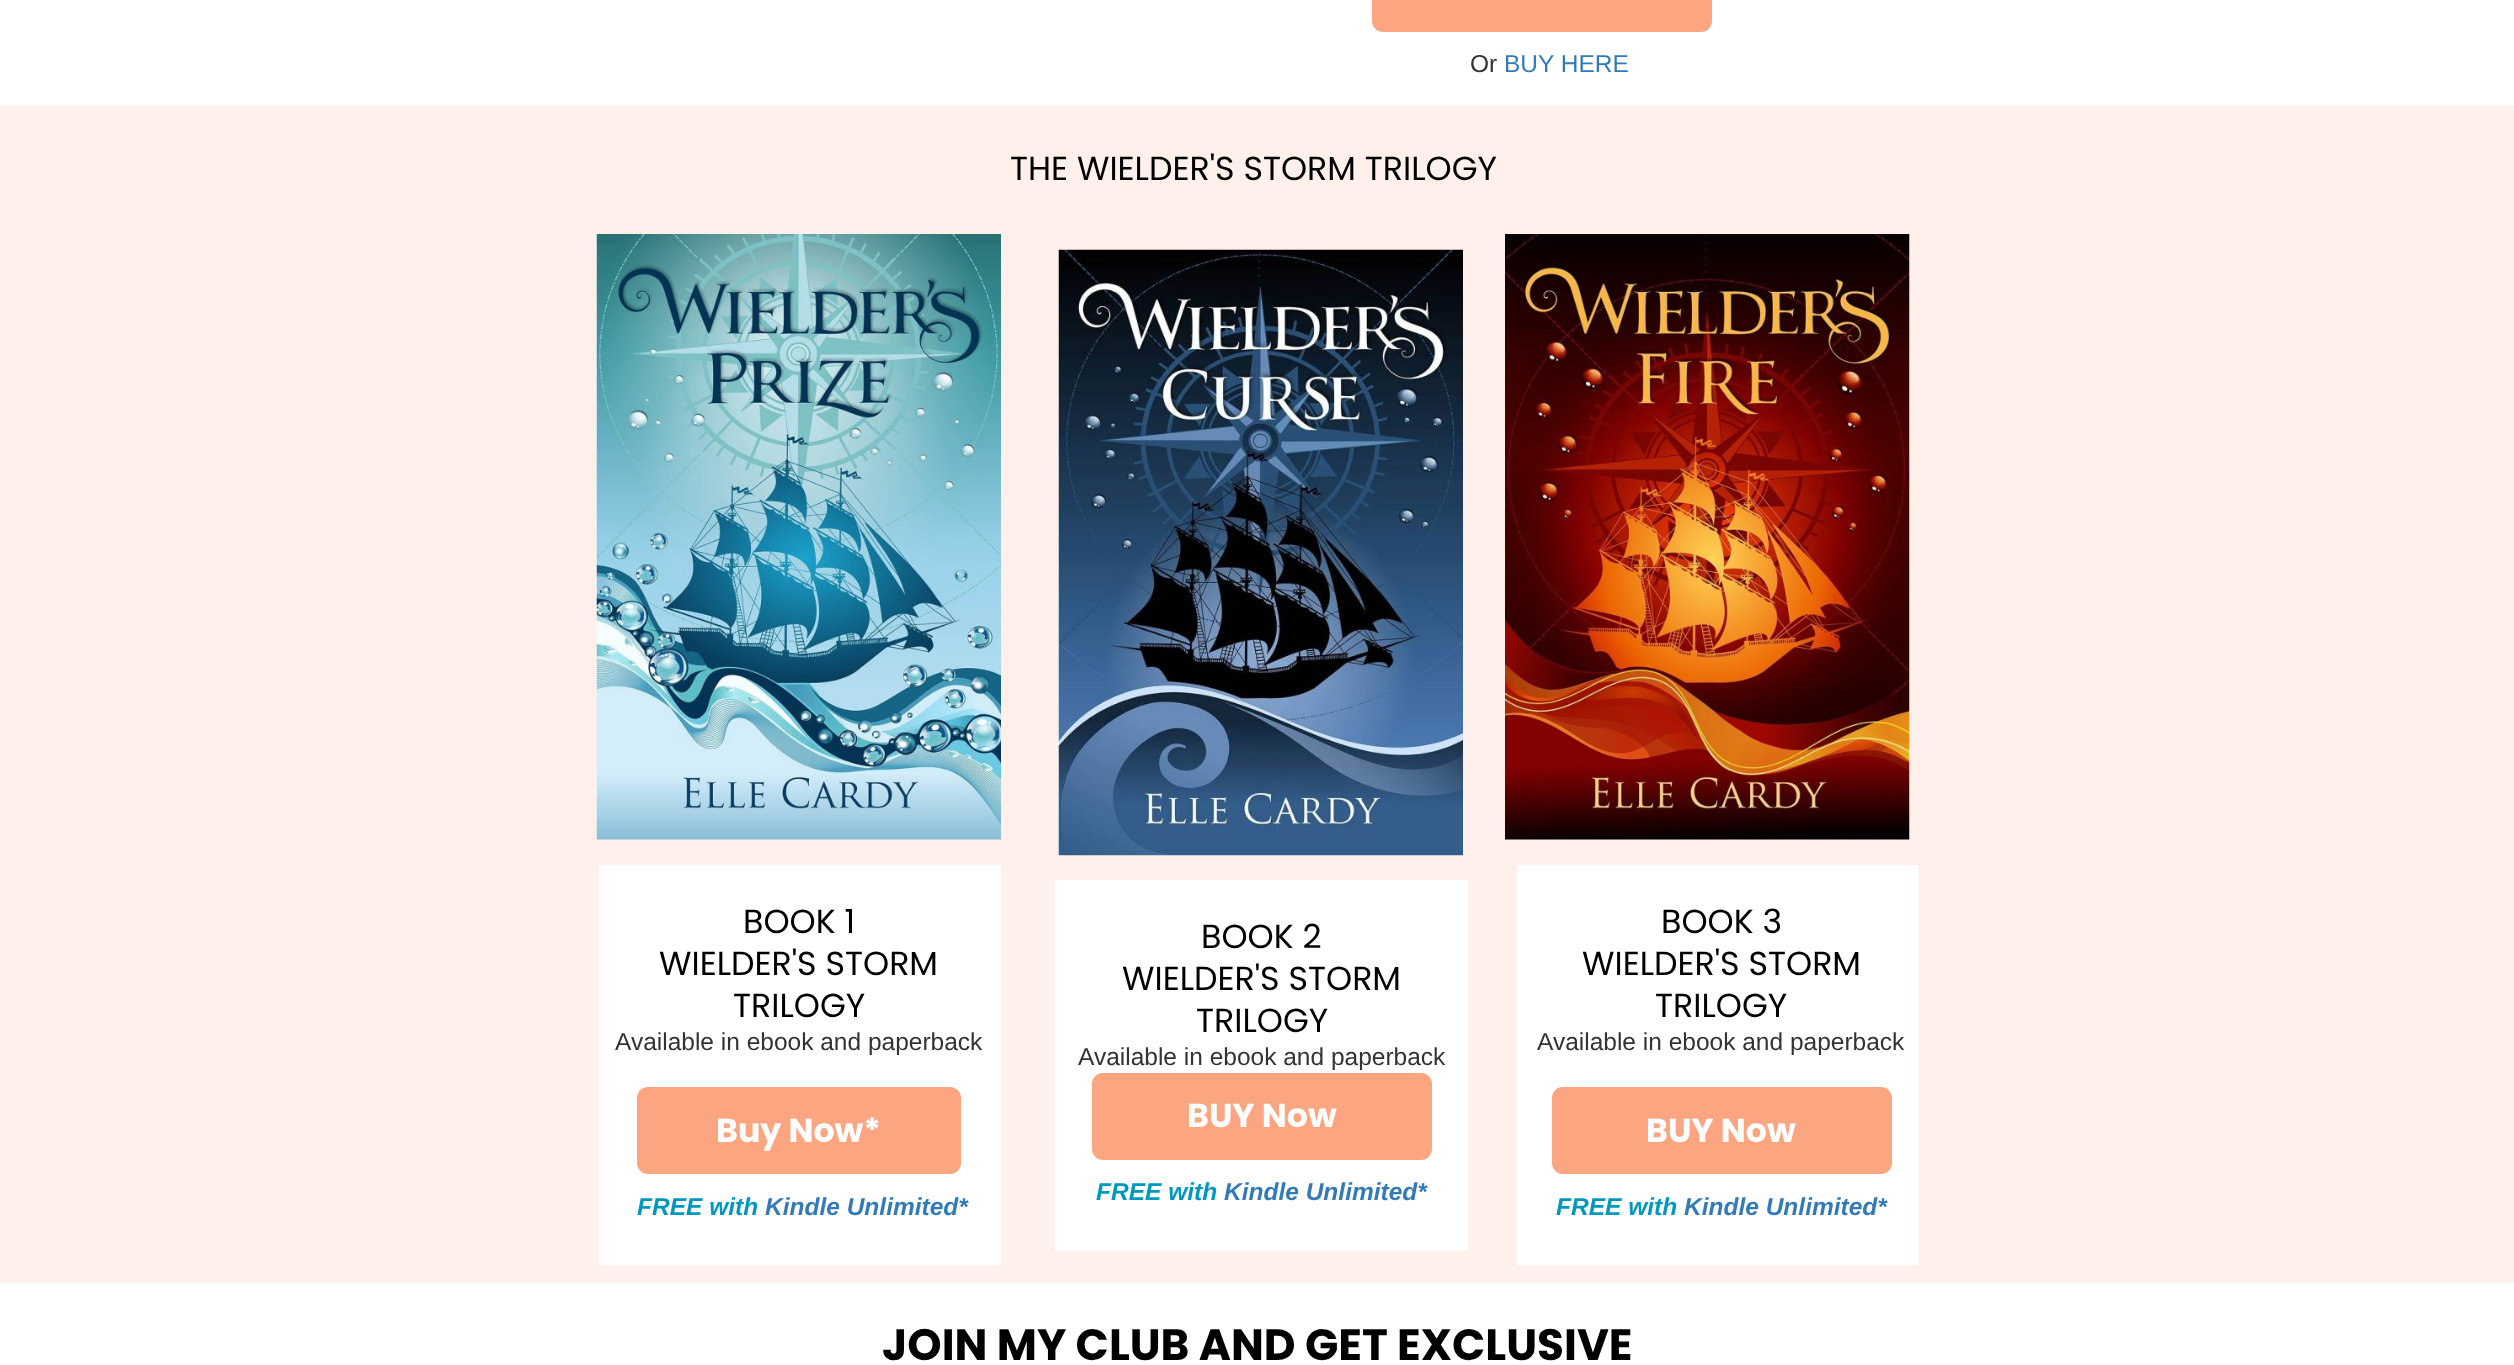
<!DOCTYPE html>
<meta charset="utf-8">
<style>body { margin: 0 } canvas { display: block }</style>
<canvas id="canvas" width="2514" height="1365"></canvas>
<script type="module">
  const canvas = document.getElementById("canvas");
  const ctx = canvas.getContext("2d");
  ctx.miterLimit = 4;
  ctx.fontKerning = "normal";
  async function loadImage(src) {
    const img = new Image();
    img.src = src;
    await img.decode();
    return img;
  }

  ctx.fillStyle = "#ffffff";
  ctx.fillRect(0, 0, 2514, 1365);
  ctx.fillStyle = "#fba681";
  ctx.beginPath();
  ctx.roundRect(1372, -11, 340, 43, 11);
  ctx.fill();
  ctx.font = "24.5px Liberation Sans";
  ctx.fillStyle = "#333333";
  ctx.fillText("Or", 1470, 72);
  ctx.fillStyle = "#337ab7";
  ctx.fillText("BUY HERE", 1504, 72);
  ctx.fillStyle = "#fff0eb";
  ctx.fillRect(0, 105, 2514, 1178);
  ctx.font = "33.25px Poppins";
  ctx.fillStyle = "#000000";
  ctx.fillText("THE WIELDER'S STORM TRILOGY", 1010, 180);
  ctx.drawImage(await loadImage("img1.png"), 596, 234, 405, 606);
  ctx.fillStyle = "#ffffff";
  ctx.fillRect(599, 865, 402, 400);
  ctx.fillStyle = "#000000";
  ctx.fillText("BOOK 1", 743, 933);
  ctx.fillText("WIELDER'S STORM", 659, 975);
  ctx.fillText("TRILOGY", 733, 1017);
  ctx.font = "24.5px Liberation Sans";
  ctx.fillStyle = "#333333";
  ctx.fillText("Available in ebook and paperback", 615, 1050);
  ctx.fillStyle = "#fba681";
  ctx.beginPath();
  ctx.roundRect(637, 1087, 324, 87, 11);
  ctx.fill();
  ctx.font = "bold 33.25px Poppins";
  ctx.fillStyle = "#ffffff";
  ctx.fillText("Buy Now*", 716, 1142);
  ctx.font = "italic bold 24.5px Liberation Sans";
  ctx.fillStyle = "#0097bd";
  ctx.fillText("FREE with", 637, 1215);
  ctx.fillStyle = "#337ab7";
  ctx.fillText("Kindle Unlimited*", 765, 1215);
  ctx.drawImage(await loadImage("img2.png"), 1058, 249, 405, 607);
  ctx.fillStyle = "#ffffff";
  ctx.fillRect(1055, 880, 413, 371);
  ctx.font = "33.25px Poppins";
  ctx.fillStyle = "#000000";
  ctx.fillText("BOOK 2", 1201, 948);
  ctx.fillText("WIELDER'S STORM", 1122, 990);
  ctx.fillText("TRILOGY", 1196, 1032);
  ctx.font = "24.5px Liberation Sans";
  ctx.fillStyle = "#333333";
  ctx.fillText("Available in ebook and paperback", 1078, 1065);
  ctx.fillStyle = "#fba681";
  ctx.beginPath();
  ctx.roundRect(1092, 1073, 340, 87, 11);
  ctx.fill();
  ctx.font = "bold 33.25px Poppins";
  ctx.fillStyle = "#ffffff";
  ctx.fillText("BUY Now", 1187, 1127);
  ctx.font = "italic bold 24.5px Liberation Sans";
  ctx.fillStyle = "#0097bd";
  ctx.fillText("FREE with", 1096, 1200);
  ctx.fillStyle = "#337ab7";
  ctx.fillText("Kindle Unlimited*", 1224, 1200);
  ctx.drawImage(await loadImage("img3.png"), 1505, 234, 405, 606);
  ctx.fillStyle = "#ffffff";
  ctx.fillRect(1517, 865, 401, 400);
  ctx.font = "33.25px Poppins";
  ctx.fillStyle = "#000000";
  ctx.fillText("BOOK 3", 1661, 933);
  ctx.fillText("WIELDER'S STORM", 1582, 975);
  ctx.fillText("TRILOGY", 1655, 1017);
  ctx.font = "24.5px Liberation Sans";
  ctx.fillStyle = "#333333";
  ctx.fillText("Available in ebook and paperback", 1537, 1050);
  ctx.fillStyle = "#fba681";
  ctx.beginPath();
  ctx.roundRect(1552, 1087, 340, 87, 11);
  ctx.fill();
  ctx.font = "bold 33.25px Poppins";
  ctx.fillStyle = "#ffffff";
  ctx.fillText("BUY Now", 1646, 1142);
  ctx.font = "italic bold 24.5px Liberation Sans";
  ctx.fillStyle = "#0097bd";
  ctx.fillText("FREE with", 1556, 1215);
  ctx.fillStyle = "#337ab7";
  ctx.fillText("Kindle Unlimited*", 1684, 1215);
  ctx.font = "bold 43.75px Poppins";
  ctx.fillStyle = "#000000";
  ctx.fillText("JOIN MY CLUB AND GET EXCLUSIVE", 882, 1360);
</script>
